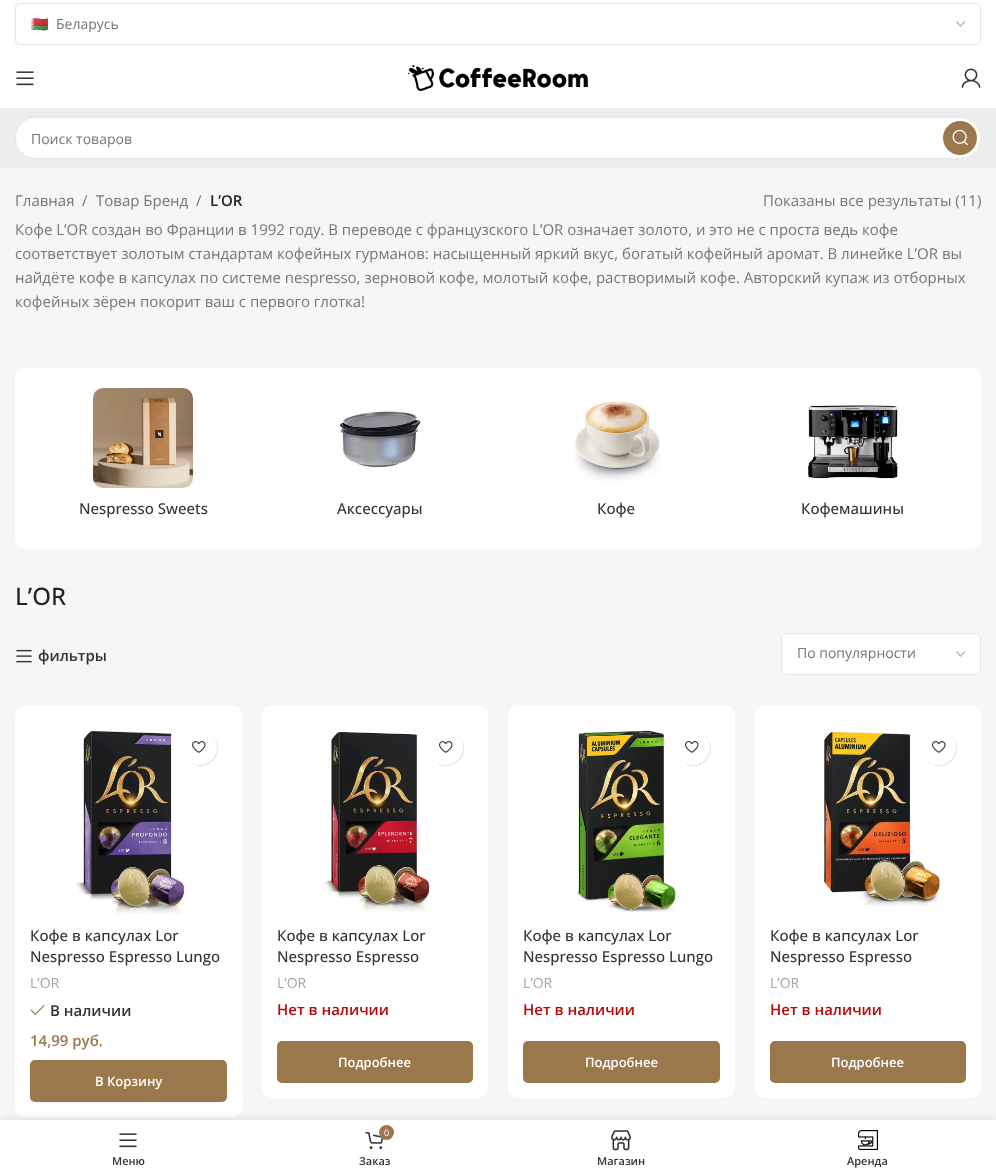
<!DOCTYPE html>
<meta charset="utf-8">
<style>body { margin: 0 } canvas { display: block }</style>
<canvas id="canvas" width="996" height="1175"></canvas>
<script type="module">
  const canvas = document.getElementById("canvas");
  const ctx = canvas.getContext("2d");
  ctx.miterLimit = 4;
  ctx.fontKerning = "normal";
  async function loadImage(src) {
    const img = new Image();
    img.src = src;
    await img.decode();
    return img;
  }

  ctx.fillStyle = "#ffffff";
  ctx.fillRect(0, 0, 996, 1175);
  ctx.beginPath();
  ctx.moveTo(956.5, 21.5);
  ctx.lineTo(960.5, 26);
  ctx.lineTo(965, 21.5);
  ctx.strokeStyle = "#bbbbbb";
  ctx.lineWidth = 1.4;
  ctx.stroke();
  ctx.beginPath();
  ctx.roundRect(15.5, 3.5, 965, 41, 4.5);
  ctx.strokeStyle = "#e6e6e6";
  ctx.lineWidth = 1;
  ctx.stroke();
  ctx.font = "14px Noto Color Emoji";
  ctx.fillStyle = "#767676";
  ctx.fillText("🇧🇾", 31, 29);
  ctx.save();
  ctx.beginPath();
  ctx.rect(31, 16, 919, 16);
  ctx.clip();
  ctx.font = "14px Open Sans";
  ctx.fillText("Беларусь", 56, 29);
  ctx.restore();
  ctx.drawImage(await loadImage("img1.png"), 16, 71, 18, 15);
  ctx.drawImage(await loadImage("img2.png"), 408, 65, 180, 26);
  ctx.drawImage(await loadImage("img3.png"), 961, 68, 20, 20);
  ctx.fillStyle = "#ededed";
  ctx.fillRect(0, 108, 996, 60);
  ctx.fillStyle = "#ffffff";
  ctx.beginPath();
  ctx.roundRect(15, 117, 966, 42, 21);
  ctx.fill();
  ctx.beginPath();
  ctx.roundRect(15.5, 117.5, 965, 41, 20.5);
  ctx.strokeStyle = "rgba(0, 0, 0, 0.1)";
  ctx.stroke();
  ctx.font = "14px Open Sans";
  ctx.fillStyle = "#767676";
  ctx.fillText("Поиск товаров", 31, 144);
  ctx.fillStyle = "#9a784b";
  ctx.beginPath();
  ctx.arc(960, 138, 17, 0, Math.PI * 2);
  ctx.fill();
  ctx.drawImage(await loadImage("img4.png"), 952, 129, 16, 17);
  ctx.fillStyle = "#f6f6f6";
  ctx.fillRect(0, 168, 996, 952);
  ctx.font = "15px Open Sans";
  ctx.fillStyle = "#767676";
  ctx.fillText("Главная", 15, 206);
  ctx.fillText("/", 82, 206);
  ctx.fillText("Товар Бренд", 96, 206);
  ctx.fillText("/", 196, 206);
  ctx.font = "600 15px Open Sans";
  ctx.fillStyle = "#242424";
  ctx.fillText("L’OR", 210, 206);
  ctx.font = "15px Open Sans";
  ctx.fillStyle = "#767676";
  ctx.fillText("Показаны все результаты (11)", 763, 206);
  ctx.fillText("Кофе L’OR создан во Франции в 1992 году. В переводе с французского L’OR означает золото, и это не с проста ведь кофе", 15, 235);
  ctx.fillText("соответствует золотым стандартам кофейных гурманов: насыщенный яркий вкус, богатый кофейный аромат. В линейке L’OR вы", 15, 259);
  ctx.fillText("найдёте кофе в капсулах по системе nespresso, зерновой кофе, молотый кофе, растворимый кофе. Авторский купаж из отборных", 15, 283);
  ctx.fillText("кофейных зёрен покорит ваш с первого глотка!", 15, 307);
  ctx.fillStyle = "#ffffff";
  ctx.beginPath();
  ctx.roundRect(15, 368, 966, 181, 10);
  ctx.fill();
  ctx.drawImage(await loadImage("img5.png"), 93, 388, 100, 100);
  ctx.font = "500 15px Open Sans";
  ctx.fillStyle = "#333333";
  ctx.fillText("Nespresso Sweets", 79, 514);
  ctx.drawImage(await loadImage("img6.png"), 339, 411, 82, 57);
  ctx.fillText("Аксессуары", 337, 514);
  ctx.drawImage(await loadImage("img7.png"), 574, 401, 87, 80);
  ctx.fillText("Кофе", 597, 514);
  ctx.drawImage(await loadImage("img8.png"), 808, 405, 90, 74);
  ctx.fillText("Кофемашины", 801, 514);
  ctx.font = "500 24px Open Sans";
  ctx.fillStyle = "#242424";
  ctx.fillText("L’OR", 15, 605);
  ctx.drawImage(await loadImage("img9.png"), 16, 649, 16, 14);
  ctx.font = "600 15px Open Sans";
  ctx.fillStyle = "#333333";
  ctx.fillText("фильтры", 38, 661);
  ctx.fillStyle = "#ffffff";
  ctx.beginPath();
  ctx.roundRect(781, 633, 200, 42, 5);
  ctx.fill();
  ctx.beginPath();
  ctx.moveTo(956.5, 651.5);
  ctx.lineTo(960.5, 656);
  ctx.lineTo(965, 651.5);
  ctx.strokeStyle = "#bbbbbb";
  ctx.lineWidth = 1.4;
  ctx.stroke();
  ctx.beginPath();
  ctx.roundRect(781.5, 633.5, 199, 41, 4.5);
  ctx.strokeStyle = "rgba(0, 0, 0, 0.1)";
  ctx.lineWidth = 1;
  ctx.stroke();
  ctx.font = "14px Open Sans";
  ctx.fillStyle = "#767676";
  ctx.fillText("По популярности", 797, 658);
  ctx.fillStyle = "#ffffff";
  ctx.beginPath();
  ctx.roundRect(15, 705, 227, 412, 10);
  ctx.fill();
  ctx.drawImage(await loadImage("img10.png"), 75, 731, 111, 183);
  ctx.fillStyle = "rgba(0, 0, 0, 0.1)";
  ctx.filter = "blur(0.5px)";
  ctx.beginPath();
  ctx.roundRect(183, 731, 35, 35, 17.5);
  ctx.fill();
  ctx.filter = "none";
  ctx.fillStyle = "#ffffff";
  ctx.beginPath();
  ctx.arc(199.5, 747.5, 17.5, 0, Math.PI * 2);
  ctx.fill();
  ctx.drawImage(await loadImage("img11.png"), 192, 741, 14, 12);
  ctx.font = "500 15px Open Sans";
  ctx.fillStyle = "#333333";
  ctx.fillText("Кофе в капсулах Lor", 30, 941);
  ctx.fillText("Nespresso Espresso Lungo", 30, 962);
  ctx.font = "14px Open Sans";
  ctx.fillStyle = "#a5a5a5";
  ctx.fillText("L’OR", 30, 988);
  ctx.drawImage(await loadImage("img12.png"), 30, 1005, 15, 10);
  ctx.font = "600 15px Open Sans";
  ctx.fillStyle = "#333333";
  ctx.fillText("В наличии", 50, 1016);
  ctx.fillStyle = "#9a784b";
  ctx.fillText("14,99 руб.", 30, 1046);
  ctx.beginPath();
  ctx.roundRect(30, 1060, 197, 42, 5);
  ctx.fill();
  ctx.font = "600 13px Open Sans";
  ctx.fillStyle = "#ffffff";
  ctx.fillText("В Корзину", 95, 1086);
  ctx.beginPath();
  ctx.roundRect(262, 705, 226, 393, 10);
  ctx.fill();
  ctx.drawImage(await loadImage("img13.png"), 323, 731, 107, 181);
  ctx.fillStyle = "rgba(0, 0, 0, 0.1)";
  ctx.filter = "blur(0.5px)";
  ctx.beginPath();
  ctx.roundRect(429, 731, 35, 35, 17.5);
  ctx.fill();
  ctx.filter = "none";
  ctx.fillStyle = "#ffffff";
  ctx.beginPath();
  ctx.arc(445.5, 747.5, 17.5, 0, Math.PI * 2);
  ctx.fill();
  ctx.drawImage(await loadImage("img11.png"), 439, 741, 14, 12);
  ctx.font = "500 15px Open Sans";
  ctx.fillStyle = "#333333";
  ctx.fillText("Кофе в капсулах Lor", 277, 941);
  ctx.fillText("Nespresso Espresso", 277, 962);
  ctx.font = "14px Open Sans";
  ctx.fillStyle = "#a5a5a5";
  ctx.fillText("L’OR", 277, 988);
  ctx.font = "600 15px Open Sans";
  ctx.fillStyle = "#b50808";
  ctx.fillText("Нет в наличии", 277, 1015);
  ctx.fillStyle = "#9a784b";
  ctx.beginPath();
  ctx.roundRect(277, 1041, 196, 42, 5);
  ctx.fill();
  ctx.font = "600 13px Open Sans";
  ctx.fillStyle = "#ffffff";
  ctx.fillText("Подробнее", 338, 1067);
  ctx.beginPath();
  ctx.roundRect(508, 705, 227, 393, 10);
  ctx.fill();
  ctx.drawImage(await loadImage("img14.png"), 577, 730, 99, 183);
  ctx.fillStyle = "rgba(0, 0, 0, 0.1)";
  ctx.filter = "blur(0.5px)";
  ctx.beginPath();
  ctx.roundRect(676, 731, 35, 35, 17.5);
  ctx.fill();
  ctx.filter = "none";
  ctx.fillStyle = "#ffffff";
  ctx.beginPath();
  ctx.arc(692.5, 747.5, 17.5, 0, Math.PI * 2);
  ctx.fill();
  ctx.drawImage(await loadImage("img11.png"), 685, 741, 14, 12);
  ctx.font = "500 15px Open Sans";
  ctx.fillStyle = "#333333";
  ctx.fillText("Кофе в капсулах Lor", 523, 941);
  ctx.fillText("Nespresso Espresso Lungo", 523, 962);
  ctx.font = "14px Open Sans";
  ctx.fillStyle = "#a5a5a5";
  ctx.fillText("L’OR", 523, 988);
  ctx.font = "600 15px Open Sans";
  ctx.fillStyle = "#b50808";
  ctx.fillText("Нет в наличии", 523, 1015);
  ctx.fillStyle = "#9a784b";
  ctx.beginPath();
  ctx.roundRect(523, 1041, 197, 42, 5);
  ctx.fill();
  ctx.font = "600 13px Open Sans";
  ctx.fillStyle = "#ffffff";
  ctx.fillText("Подробнее", 585, 1067);
  ctx.beginPath();
  ctx.roundRect(755, 705, 226, 393, 10);
  ctx.fill();
  ctx.drawImage(await loadImage("img15.png"), 824, 731, 117, 176);
  ctx.fillStyle = "rgba(0, 0, 0, 0.1)";
  ctx.filter = "blur(0.5px)";
  ctx.beginPath();
  ctx.roundRect(922, 731, 35, 35, 17.5);
  ctx.fill();
  ctx.filter = "none";
  ctx.fillStyle = "#ffffff";
  ctx.beginPath();
  ctx.arc(938.5, 747.5, 17.5, 0, Math.PI * 2);
  ctx.fill();
  ctx.drawImage(await loadImage("img11.png"), 932, 741, 14, 12);
  ctx.font = "500 15px Open Sans";
  ctx.fillStyle = "#333333";
  ctx.fillText("Кофе в капсулах Lor", 770, 941);
  ctx.fillText("Nespresso Espresso", 770, 962);
  ctx.font = "14px Open Sans";
  ctx.fillStyle = "#a5a5a5";
  ctx.fillText("L’OR", 770, 988);
  ctx.font = "600 15px Open Sans";
  ctx.fillStyle = "#b50808";
  ctx.fillText("Нет в наличии", 770, 1015);
  ctx.fillStyle = "#9a784b";
  ctx.beginPath();
  ctx.roundRect(770, 1041, 196, 42, 5);
  ctx.fill();
  ctx.font = "600 13px Open Sans";
  ctx.fillStyle = "#ffffff";
  ctx.fillText("Подробнее", 831, 1067);
  ctx.fillStyle = "rgba(0, 0, 0, 0.12)";
  ctx.filter = "blur(4.5px)";
  ctx.beginPath();
  ctx.rect(0, 1120, 996, 55);
  ctx.fill();
  ctx.filter = "none";
  ctx.fillStyle = "#ffffff";
  ctx.fillRect(0, 1120, 996, 55);
  ctx.drawImage(await loadImage("img1.png"), 119, 1133, 18, 15);
  ctx.font = "600 11px Open Sans";
  ctx.fillStyle = "#333333";
  ctx.fillText("Меню", 112, 1165);
  ctx.drawImage(await loadImage("img16.png"), 365, 1132, 19, 17);
  ctx.fillStyle = "#9a784b";
  ctx.beginPath();
  ctx.arc(386.5, 1132.5, 7.5, 0, Math.PI * 2);
  ctx.fill();
  ctx.font = "9px Open Sans";
  ctx.fillStyle = "#ffffff";
  ctx.fillText("0", 384, 1136);
  ctx.font = "600 11px Open Sans";
  ctx.fillStyle = "#333333";
  ctx.fillText("Заказ", 359, 1165);
  ctx.drawImage(await loadImage("img17.png"), 611, 1130, 20, 21);
  ctx.fillText("Магазин", 597, 1165);
  ctx.drawImage(await loadImage("img18.png"), 858, 1130, 20, 20);
  ctx.fillText("Аренда", 847, 1165);
</script>
